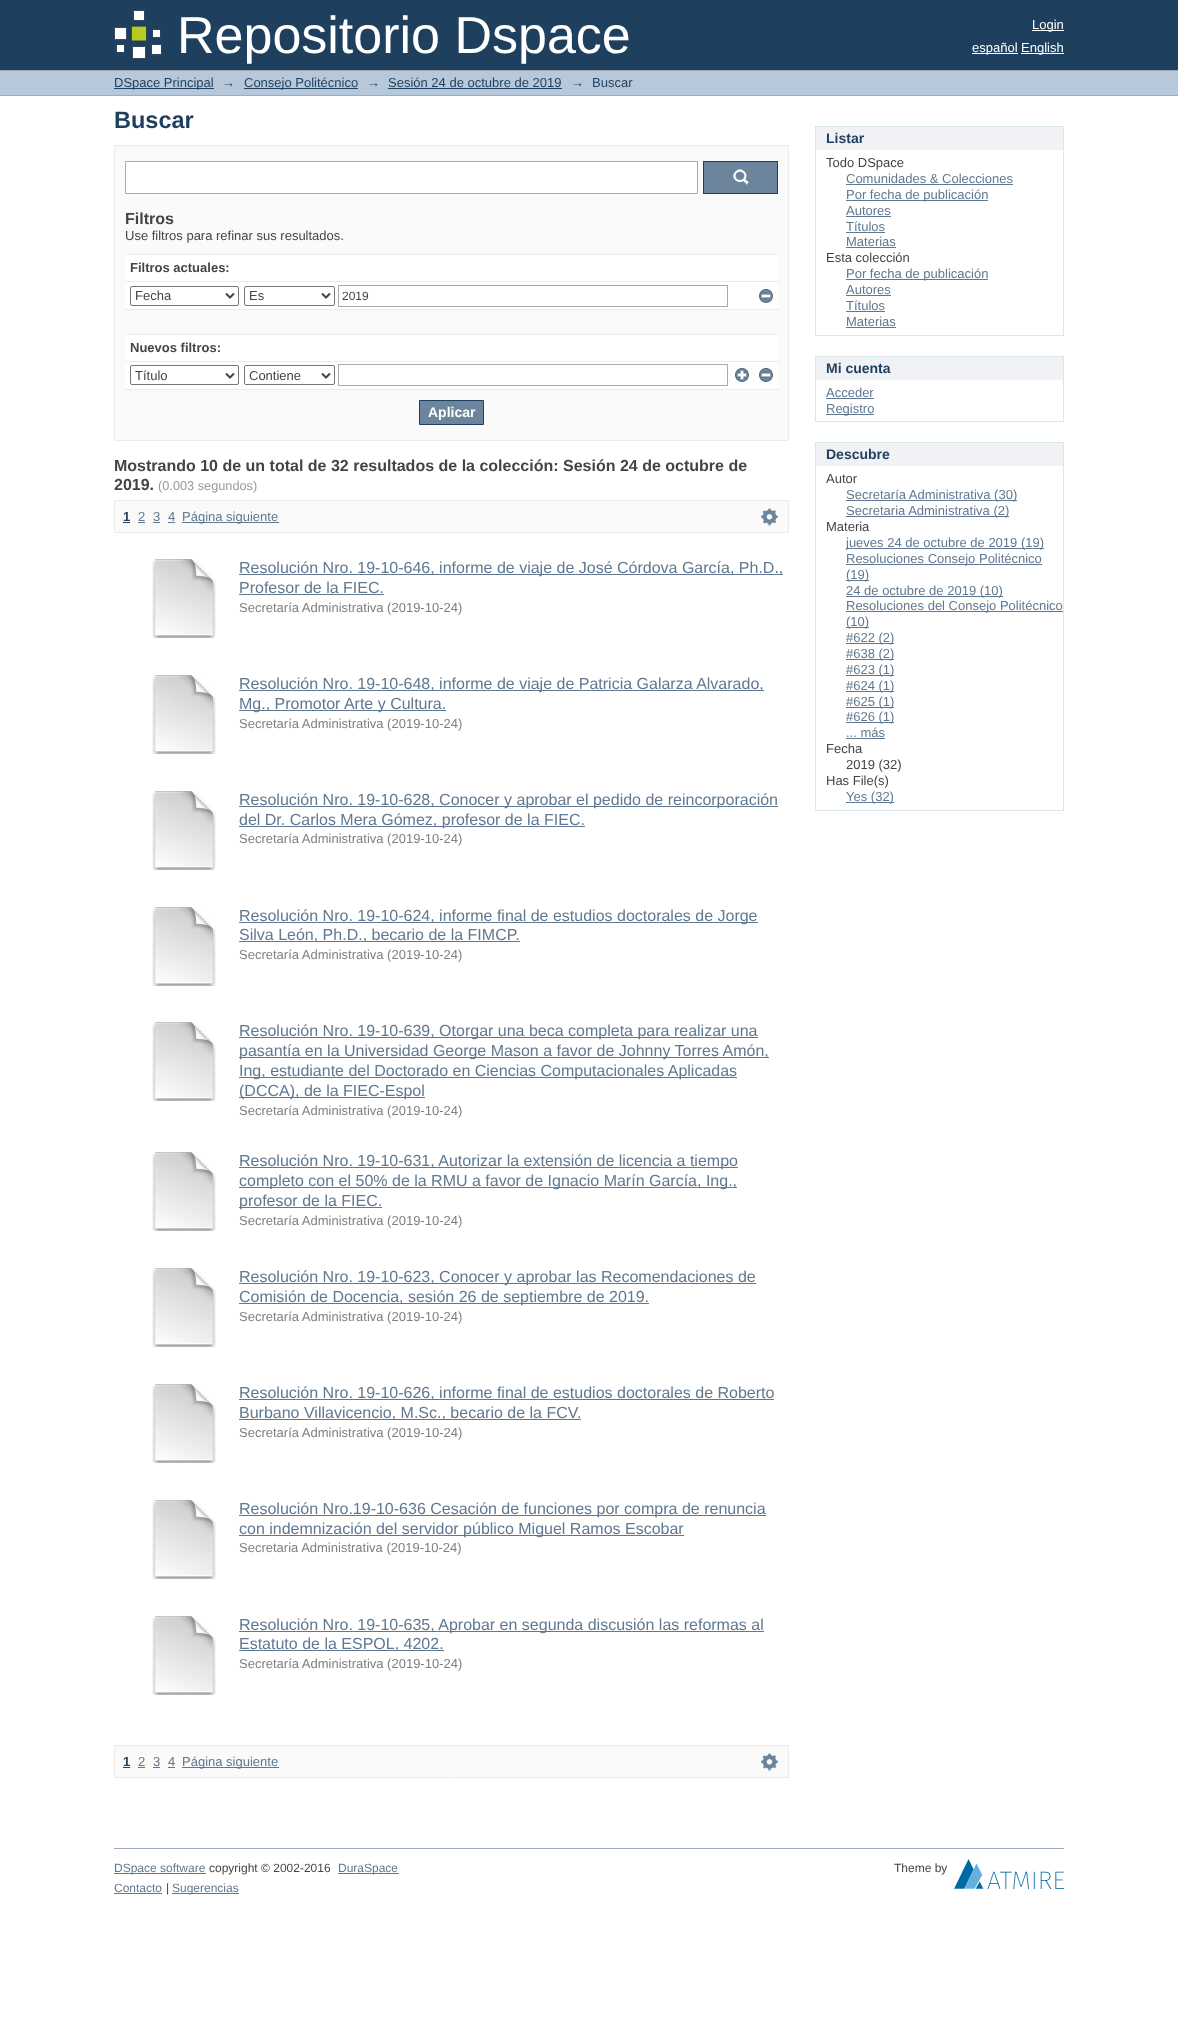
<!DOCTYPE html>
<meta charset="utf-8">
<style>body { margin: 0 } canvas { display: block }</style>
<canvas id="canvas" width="1178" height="2035"></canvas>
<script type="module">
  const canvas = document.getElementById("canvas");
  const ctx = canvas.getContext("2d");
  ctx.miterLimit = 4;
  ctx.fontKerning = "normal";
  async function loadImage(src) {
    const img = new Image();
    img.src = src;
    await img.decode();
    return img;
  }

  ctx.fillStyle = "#ffffff";
  ctx.fillRect(0, 0, 1178, 2035);
  ctx.fillStyle = "#1f3f5e";
  ctx.fillRect(0, 0, 1178, 70);
  ctx.drawImage(await loadImage("img1.png"), 114, 10, 48, 49);
  ctx.font = "52px Liberation Sans";
  ctx.fillStyle = "#ffffff";
  ctx.fillText("Repositorio Dspace", 177, 53);
  ctx.fillRect(1032, 30, 32, 1);
  ctx.font = "13px Liberation Sans";
  ctx.fillText("Login", 1032, 29);
  ctx.fillRect(972, 53, 46, 1);
  ctx.fillText("español", 972, 52);
  ctx.fillRect(1021, 53, 43, 1);
  ctx.fillText("English", 1021, 52);
  ctx.fillStyle = "#b6c8d9";
  ctx.fillRect(0, 71, 1178, 24);
  ctx.fillStyle = "#9cacba";
  ctx.fillRect(0, 70, 1178, 1);
  ctx.fillRect(0, 95, 1178, 1);
  ctx.fillStyle = "#1f3f5e";
  ctx.fillRect(114, 88, 100, 1);
  ctx.fillText("DSpace Principal", 114, 87);
  ctx.fillText("→", 222, 87);
  ctx.fillRect(244, 88, 114, 1);
  ctx.fillText("Consejo Politécnico", 244, 87);
  ctx.fillText("→", 367, 87);
  ctx.fillText("Sesión 24 de octubre de 2019", 388, 87);
  ctx.fillRect(388, 88, 174, 1);
  ctx.fillText("→", 571, 87);
  ctx.fillText("Buscar", 592, 87);
  ctx.font = "bold 23.5px Liberation Sans";
  ctx.fillText("Buscar", 114, 128);
  ctx.fillStyle = "#fafafa";
  ctx.beginPath();
  ctx.rect(114.5, 145.5, 674, 295);
  ctx.fill();
  ctx.strokeStyle = "#ebebeb";
  ctx.stroke();
  ctx.fillStyle = "#ffffff";
  ctx.beginPath();
  ctx.rect(125.5, 161.5, 572, 32);
  ctx.fill();
  ctx.strokeStyle = "#aaaaaa";
  ctx.stroke();
  ctx.fillStyle = "#6d859c";
  ctx.fillRect(704, 162, 73, 31);
  ctx.drawImage(await loadImage("img2.png"), 733, 169, 16, 16);
  ctx.strokeStyle = "#1f3f5e";
  ctx.strokeRect(703.5, 161.5, 74, 32);
  ctx.font = "bold 16px Liberation Sans";
  ctx.fillStyle = "#444444";
  ctx.fillText("Filtros", 125, 224);
  ctx.font = "13px Liberation Sans";
  ctx.fillText("Use filtros para refinar sus resultados.", 125, 240);
  ctx.fillStyle = "#ffffff";
  ctx.fillRect(125, 255, 653, 134);
  ctx.fillStyle = "#ebebeb";
  ctx.fillRect(125, 254, 654, 1);
  ctx.font = "bold 13px Liberation Sans";
  ctx.fillStyle = "#444444";
  ctx.fillText("Filtros actuales:", 130, 272);
  ctx.fillStyle = "#ebebeb";
  ctx.fillRect(125, 281, 654, 1);
  ctx.beginPath();
  ctx.roundRect(130.5, 286.5, 108, 19, 1.5);
  ctx.strokeStyle = "#767676";
  ctx.stroke();
  ctx.beginPath();
  ctx.moveTo(226, 293.5);
  ctx.lineTo(230, 297.5);
  ctx.lineTo(234, 293.5);
  ctx.strokeStyle = "#444444";
  ctx.lineWidth = 2;
  ctx.stroke();
  ctx.font = "13px Liberation Sans";
  ctx.fillStyle = "#444444";
  ctx.fillText("Fecha", 135, 300);
  ctx.beginPath();
  ctx.roundRect(244.5, 286.5, 90, 19, 1.5);
  ctx.strokeStyle = "#767676";
  ctx.lineWidth = 1;
  ctx.stroke();
  ctx.beginPath();
  ctx.moveTo(322, 293.5);
  ctx.lineTo(326, 297.5);
  ctx.lineTo(330, 293.5);
  ctx.strokeStyle = "#444444";
  ctx.lineWidth = 2;
  ctx.stroke();
  ctx.fillText("Es", 249, 300);
  ctx.strokeStyle = "#aaaaaa";
  ctx.lineWidth = 1;
  ctx.strokeRect(338.5, 285.5, 389, 21);
  ctx.font = "12px Liberation Sans";
  ctx.fillText("2019", 342, 300);
  ctx.drawImage(await loadImage("img3.png"), 759, 289, 14, 14);
  ctx.fillStyle = "#fafafa";
  ctx.fillRect(125, 310, 653, 24);
  ctx.fillStyle = "#ebebeb";
  ctx.fillRect(125, 309, 654, 1);
  ctx.fillRect(125, 334, 654, 1);
  ctx.font = "bold 13px Liberation Sans";
  ctx.fillStyle = "#444444";
  ctx.fillText("Nuevos filtros:", 130, 352);
  ctx.fillStyle = "#ebebeb";
  ctx.fillRect(125, 361, 654, 1);
  ctx.beginPath();
  ctx.roundRect(130.5, 365.5, 108, 19, 1.5);
  ctx.strokeStyle = "#767676";
  ctx.stroke();
  ctx.beginPath();
  ctx.moveTo(226, 373.5);
  ctx.lineTo(230, 377.5);
  ctx.lineTo(234, 373.5);
  ctx.strokeStyle = "#444444";
  ctx.lineWidth = 2;
  ctx.stroke();
  ctx.font = "13px Liberation Sans";
  ctx.fillStyle = "#444444";
  ctx.fillText("Título", 135, 380);
  ctx.beginPath();
  ctx.roundRect(244.5, 365.5, 90, 19, 1.5);
  ctx.strokeStyle = "#767676";
  ctx.lineWidth = 1;
  ctx.stroke();
  ctx.beginPath();
  ctx.moveTo(322, 373.5);
  ctx.lineTo(326, 377.5);
  ctx.lineTo(330, 373.5);
  ctx.strokeStyle = "#444444";
  ctx.lineWidth = 2;
  ctx.stroke();
  ctx.fillText("Contiene", 249, 380);
  ctx.strokeStyle = "#aaaaaa";
  ctx.lineWidth = 1;
  ctx.strokeRect(338.5, 364.5, 389, 21);
  ctx.drawImage(await loadImage("img4.png"), 735, 368, 14, 14);
  ctx.drawImage(await loadImage("img3.png"), 759, 368, 14, 14);
  ctx.fillStyle = "#ebebeb";
  ctx.fillRect(125, 389, 654, 1);
  ctx.fillStyle = "#6d859c";
  ctx.beginPath();
  ctx.rect(419.5, 400.5, 64, 24);
  ctx.fill();
  ctx.strokeStyle = "#1f3f5e";
  ctx.stroke();
  ctx.font = "bold 14px Liberation Sans";
  ctx.fillStyle = "#ffffff";
  ctx.fillText("Aplicar", 428, 417);
  ctx.font = "bold 16px Liberation Sans";
  ctx.fillStyle = "#444444";
  ctx.fillText("Mostrando 10 de un total de 32 resultados de la colección: Sesión 24 de octubre de", 114, 471);
  ctx.fillText("2019.", 114, 490);
  ctx.font = "12.75px Liberation Sans";
  ctx.fillStyle = "#999999";
  ctx.fillText("(0.003 segundos)", 158, 490);
  ctx.fillStyle = "#fafafa";
  ctx.beginPath();
  ctx.rect(114.5, 500.5, 674, 32);
  ctx.fill();
  ctx.strokeStyle = "#ebebeb";
  ctx.stroke();
  ctx.font = "bold 13px Liberation Sans";
  ctx.fillStyle = "#1f3f5e";
  ctx.fillText("1", 123, 521);
  ctx.fillRect(123, 522, 7, 1);
  ctx.font = "13px Liberation Sans";
  ctx.fillStyle = "#607890";
  ctx.fillText("2", 138, 521);
  ctx.fillRect(138, 522, 7, 1);
  ctx.fillText("3", 153, 521);
  ctx.fillRect(153, 522, 7, 1);
  ctx.fillText("4", 168, 521);
  ctx.fillRect(168, 522, 7, 1);
  ctx.fillRect(182, 522, 97, 1);
  ctx.fillText("Página siguiente", 182, 521);
  ctx.drawImage(await loadImage("img5.png"), 761, 508, 17, 18);
  ctx.drawImage(await loadImage("img6.png"), 152, 559, 64, 79);
  ctx.fillRect(239, 574, 544, 1);
  ctx.font = "16px Liberation Sans";
  ctx.fillText("Resolución Nro. 19-10-646, informe de viaje de José Córdova García, Ph.D.,", 239, 573);
  ctx.fillText("Profesor de la FIEC.", 239, 593);
  ctx.fillRect(239, 594, 145, 1);
  ctx.font = "13px Liberation Sans";
  ctx.fillStyle = "#808080";
  ctx.fillText("Secretaría Administrativa (2019-10-24)", 239, 612);
  ctx.drawImage(await loadImage("img6.png"), 152, 675, 64, 79);
  ctx.fillStyle = "#607890";
  ctx.fillRect(239, 690, 525, 1);
  ctx.font = "16px Liberation Sans";
  ctx.fillText("Resolución Nro. 19-10-648, informe de viaje de Patricia Galarza Alvarado,", 239, 689);
  ctx.fillRect(239, 710, 207, 1);
  ctx.fillText("Mg., Promotor Arte y Cultura.", 239, 709);
  ctx.font = "13px Liberation Sans";
  ctx.fillStyle = "#808080";
  ctx.fillText("Secretaría Administrativa (2019-10-24)", 239, 728);
  ctx.drawImage(await loadImage("img6.png"), 152, 791, 64, 79);
  ctx.fillStyle = "#607890";
  ctx.fillRect(239, 806, 539, 1);
  ctx.font = "16px Liberation Sans";
  ctx.fillText("Resolución Nro. 19-10-628, Conocer y aprobar el pedido de reincorporación", 239, 805);
  ctx.fillRect(239, 826, 346, 1);
  ctx.fillText("del Dr. Carlos Mera Gómez, profesor de la FIEC.", 239, 825);
  ctx.font = "13px Liberation Sans";
  ctx.fillStyle = "#808080";
  ctx.fillText("Secretaría Administrativa (2019-10-24)", 239, 843);
  ctx.drawImage(await loadImage("img7.png"), 152, 907, 64, 79);
  ctx.fillStyle = "#607890";
  ctx.fillRect(239, 922, 519, 1);
  ctx.font = "16px Liberation Sans";
  ctx.fillText("Resolución Nro. 19-10-624, informe final de estudios doctorales de Jorge", 239, 921);
  ctx.fillRect(239, 941, 281, 1);
  ctx.fillText("Silva León, Ph.D., becario de la FIMCP.", 239, 940);
  ctx.font = "13px Liberation Sans";
  ctx.fillStyle = "#808080";
  ctx.fillText("Secretaría Administrativa (2019-10-24)", 239, 959);
  ctx.drawImage(await loadImage("img6.png"), 152, 1022, 64, 79);
  ctx.fillStyle = "#607890";
  ctx.fillRect(239, 1037, 519, 1);
  ctx.font = "16px Liberation Sans";
  ctx.fillText("Resolución Nro. 19-10-639, Otorgar una beca completa para realizar una", 239, 1036);
  ctx.fillRect(239, 1057, 530, 1);
  ctx.fillText("pasantía en la Universidad George Mason a favor de Johnny Torres Amón,", 239, 1056);
  ctx.fillRect(239, 1077, 498, 1);
  ctx.fillText("Ing, estudiante del Doctorado en Ciencias Computacionales Aplicadas", 239, 1076);
  ctx.fillRect(239, 1097, 186, 1);
  ctx.fillText("(DCCA), de la FIEC-Espol", 239, 1096);
  ctx.font = "13px Liberation Sans";
  ctx.fillStyle = "#808080";
  ctx.fillText("Secretaría Administrativa (2019-10-24)", 239, 1115);
  ctx.drawImage(await loadImage("img6.png"), 152, 1152, 64, 79);
  ctx.fillStyle = "#607890";
  ctx.fillRect(239, 1167, 499, 1);
  ctx.font = "16px Liberation Sans";
  ctx.fillText("Resolución Nro. 19-10-631, Autorizar la extensión de licencia a tiempo", 239, 1166);
  ctx.fillRect(239, 1187, 498, 1);
  ctx.fillText("completo con el 50% de la RMU a favor de Ignacio Marín García, Ing.,", 239, 1186);
  ctx.fillRect(239, 1207, 143, 1);
  ctx.fillText("profesor de la FIEC.", 239, 1206);
  ctx.font = "13px Liberation Sans";
  ctx.fillStyle = "#808080";
  ctx.fillText("Secretaría Administrativa (2019-10-24)", 239, 1225);
  ctx.drawImage(await loadImage("img6.png"), 152, 1268, 64, 79);
  ctx.fillStyle = "#607890";
  ctx.fillRect(239, 1283, 517, 1);
  ctx.font = "16px Liberation Sans";
  ctx.fillText("Resolución Nro. 19-10-623, Conocer y aprobar las Recomendaciones de", 239, 1282);
  ctx.fillRect(239, 1303, 410, 1);
  ctx.fillText("Comisión de Docencia, sesión 26 de septiembre de 2019.", 239, 1302);
  ctx.font = "13px Liberation Sans";
  ctx.fillStyle = "#808080";
  ctx.fillText("Secretaría Administrativa (2019-10-24)", 239, 1321);
  ctx.drawImage(await loadImage("img6.png"), 152, 1384, 64, 79);
  ctx.fillStyle = "#607890";
  ctx.fillRect(239, 1399, 535, 1);
  ctx.font = "16px Liberation Sans";
  ctx.fillText("Resolución Nro. 19-10-626, informe final de estudios doctorales de Roberto", 239, 1398);
  ctx.fillRect(239, 1419, 342, 1);
  ctx.fillText("Burbano Villavicencio, M.Sc., becario de la FCV.", 239, 1418);
  ctx.font = "13px Liberation Sans";
  ctx.fillStyle = "#808080";
  ctx.fillText("Secretaría Administrativa (2019-10-24)", 239, 1437);
  ctx.drawImage(await loadImage("img6.png"), 152, 1500, 64, 79);
  ctx.fillStyle = "#607890";
  ctx.fillRect(239, 1515, 527, 1);
  ctx.font = "16px Liberation Sans";
  ctx.fillText("Resolución Nro.19-10-636 Cesación de funciones por compra de renuncia", 239, 1514);
  ctx.fillRect(239, 1535, 445, 1);
  ctx.fillText("con indemnización del servidor público Miguel Ramos Escobar", 239, 1534);
  ctx.font = "13px Liberation Sans";
  ctx.fillStyle = "#808080";
  ctx.fillText("Secretaria Administrativa (2019-10-24)", 239, 1552);
  ctx.drawImage(await loadImage("img6.png"), 152, 1616, 64, 79);
  ctx.fillStyle = "#607890";
  ctx.fillRect(239, 1631, 525, 1);
  ctx.font = "16px Liberation Sans";
  ctx.fillText("Resolución Nro. 19-10-635, Aprobar en segunda discusión las reformas al", 239, 1630);
  ctx.fillRect(239, 1650, 205, 1);
  ctx.fillText("Estatuto de la ESPOL, 4202.", 239, 1649);
  ctx.font = "13px Liberation Sans";
  ctx.fillStyle = "#808080";
  ctx.fillText("Secretaría Administrativa (2019-10-24)", 239, 1668);
  ctx.fillStyle = "#fafafa";
  ctx.beginPath();
  ctx.rect(114.5, 1745.5, 674, 32);
  ctx.fill();
  ctx.stroke();
  ctx.font = "bold 13px Liberation Sans";
  ctx.fillStyle = "#1f3f5e";
  ctx.fillText("1", 123, 1766);
  ctx.fillRect(123, 1767, 7, 1);
  ctx.font = "13px Liberation Sans";
  ctx.fillStyle = "#607890";
  ctx.fillText("2", 138, 1766);
  ctx.fillRect(138, 1767, 7, 1);
  ctx.fillText("3", 153, 1766);
  ctx.fillRect(153, 1767, 7, 1);
  ctx.fillText("4", 168, 1766);
  ctx.fillRect(168, 1767, 7, 1);
  ctx.fillRect(182, 1767, 97, 1);
  ctx.fillText("Página siguiente", 182, 1766);
  ctx.drawImage(await loadImage("img5.png"), 761, 1753, 17, 18);
  ctx.fillStyle = "#f0f2f5";
  ctx.fillRect(816, 127, 247, 23);
  ctx.fillStyle = "#d8e8eb";
  ctx.fillRect(815, 126, 249, 1);
  ctx.fillRect(1063, 126, 1, 210);
  ctx.fillRect(815, 126, 1, 24);
  ctx.font = "bold 14px Liberation Sans";
  ctx.fillStyle = "#1f3f5e";
  ctx.fillText("Listar", 826, 143);
  ctx.fillStyle = "#d8e8eb";
  ctx.fillRect(815, 335, 249, 1);
  ctx.fillRect(815, 150, 1, 186);
  ctx.font = "13px Liberation Sans";
  ctx.fillStyle = "#444444";
  ctx.fillText("Todo DSpace", 826, 167);
  ctx.fillStyle = "#607890";
  ctx.fillText("Comunidades & Colecciones", 846, 183);
  ctx.fillRect(846, 184, 167, 1);
  ctx.fillRect(846, 200, 142, 1);
  ctx.fillText("Por fecha de publicación", 846, 199);
  ctx.fillText("Autores", 846, 215);
  ctx.fillRect(846, 216, 45, 1);
  ctx.fillText("Títulos", 846, 231);
  ctx.fillRect(846, 232, 39, 1);
  ctx.fillText("Materias", 846, 246);
  ctx.fillRect(846, 247, 50, 1);
  ctx.fillStyle = "#444444";
  ctx.fillText("Esta colección", 826, 262);
  ctx.fillStyle = "#607890";
  ctx.fillRect(846, 279, 142, 1);
  ctx.fillText("Por fecha de publicación", 846, 278);
  ctx.fillText("Autores", 846, 294);
  ctx.fillRect(846, 295, 45, 1);
  ctx.fillText("Títulos", 846, 310);
  ctx.fillRect(846, 311, 39, 1);
  ctx.fillText("Materias", 846, 326);
  ctx.fillRect(846, 327, 50, 1);
  ctx.fillStyle = "#f0f2f5";
  ctx.fillRect(816, 357, 247, 23);
  ctx.fillStyle = "#d8e8eb";
  ctx.fillRect(815, 356, 249, 1);
  ctx.fillRect(1063, 356, 1, 66);
  ctx.fillRect(815, 356, 1, 24);
  ctx.font = "bold 14px Liberation Sans";
  ctx.fillStyle = "#1f3f5e";
  ctx.fillText("Mi cuenta", 826, 373);
  ctx.fillStyle = "#d8e8eb";
  ctx.fillRect(815, 421, 249, 1);
  ctx.fillRect(815, 380, 1, 42);
  ctx.font = "13px Liberation Sans";
  ctx.fillStyle = "#607890";
  ctx.fillText("Acceder", 826, 397);
  ctx.fillRect(826, 398, 48, 1);
  ctx.fillRect(826, 414, 48, 1);
  ctx.fillText("Registro", 826, 413);
  ctx.fillStyle = "#f0f2f5";
  ctx.fillRect(816, 443, 247, 23);
  ctx.fillStyle = "#d8e8eb";
  ctx.fillRect(815, 442, 249, 1);
  ctx.fillRect(1063, 442, 1, 369);
  ctx.fillRect(815, 442, 1, 24);
  ctx.font = "bold 14px Liberation Sans";
  ctx.fillStyle = "#1f3f5e";
  ctx.fillText("Descubre", 826, 459);
  ctx.fillStyle = "#d8e8eb";
  ctx.fillRect(815, 810, 249, 1);
  ctx.fillRect(815, 466, 1, 345);
  ctx.font = "13px Liberation Sans";
  ctx.fillStyle = "#444444";
  ctx.fillText("Autor", 826, 483);
  ctx.fillStyle = "#607890";
  ctx.fillRect(846, 500, 171, 1);
  ctx.fillText("Secretaría Administrativa (30)", 846, 499);
  ctx.fillRect(846, 516, 163, 1);
  ctx.fillText("Secretaria Administrativa (2)", 846, 515);
  ctx.fillStyle = "#444444";
  ctx.fillText("Materia", 826, 531);
  ctx.fillStyle = "#607890";
  ctx.fillRect(846, 548, 198, 1);
  ctx.fillText("jueves 24 de octubre de 2019 (19)", 846, 547);
  ctx.fillRect(846, 564, 196, 1);
  ctx.fillText("Resoluciones Consejo Politécnico", 846, 563);
  ctx.fillRect(846, 580, 23, 1);
  ctx.fillText("(19)", 846, 579);
  ctx.fillRect(846, 596, 157, 1);
  ctx.fillText("24 de octubre de 2019 (10)", 846, 595);
  ctx.fillRect(846, 611, 217, 1);
  ctx.fillText("Resoluciones del Consejo Politécnico", 846, 610);
  ctx.fillRect(846, 627, 23, 1);
  ctx.fillText("(10)", 846, 626);
  ctx.fillRect(846, 643, 48, 1);
  ctx.fillText("#622 (2)", 846, 642);
  ctx.fillRect(846, 659, 48, 1);
  ctx.fillText("#638 (2)", 846, 658);
  ctx.fillRect(846, 675, 48, 1);
  ctx.fillText("#623 (1)", 846, 674);
  ctx.fillRect(846, 691, 48, 1);
  ctx.fillText("#624 (1)", 846, 690);
  ctx.fillRect(846, 707, 48, 1);
  ctx.fillText("#625 (1)", 846, 706);
  ctx.fillRect(846, 722, 48, 1);
  ctx.fillText("#626 (1)", 846, 721);
  ctx.fillText("... más", 846, 737);
  ctx.fillRect(846, 738, 39, 1);
  ctx.fillStyle = "#444444";
  ctx.fillText("Fecha", 826, 753);
  ctx.fillText("2019 (32)", 846, 769);
  ctx.fillText("Has File(s)", 826, 785);
  ctx.fillStyle = "#607890";
  ctx.fillRect(846, 802, 48, 1);
  ctx.fillText("Yes (32)", 846, 801);
  ctx.fillStyle = "#9cacba";
  ctx.fillRect(114, 1848, 950, 1);
  ctx.fillStyle = "#607890";
  ctx.fillRect(114, 1873, 92, 1);
  ctx.font = "12px Liberation Sans";
  ctx.fillText("DSpace software", 114, 1872);
  ctx.fillStyle = "#444444";
  ctx.fillText("copyright © 2002-2016", 209, 1872);
  ctx.fillStyle = "#607890";
  ctx.fillRect(338, 1873, 61, 1);
  ctx.fillText("DuraSpace", 338, 1872);
  ctx.fillStyle = "#444444";
  ctx.fillText("Theme by", 894, 1872);
  ctx.drawImage(await loadImage("img8.png"), 954, 1859, 110, 30);
  ctx.fillStyle = "#607890";
  ctx.fillText("Contacto", 114, 1892);
  ctx.fillRect(114, 1893, 48, 1);
  ctx.fillStyle = "#444444";
  ctx.fillText("|", 166, 1892);
  ctx.fillStyle = "#607890";
  ctx.fillRect(172, 1893, 67, 1);
  ctx.fillText("Sugerencias", 172, 1892);
</script>
